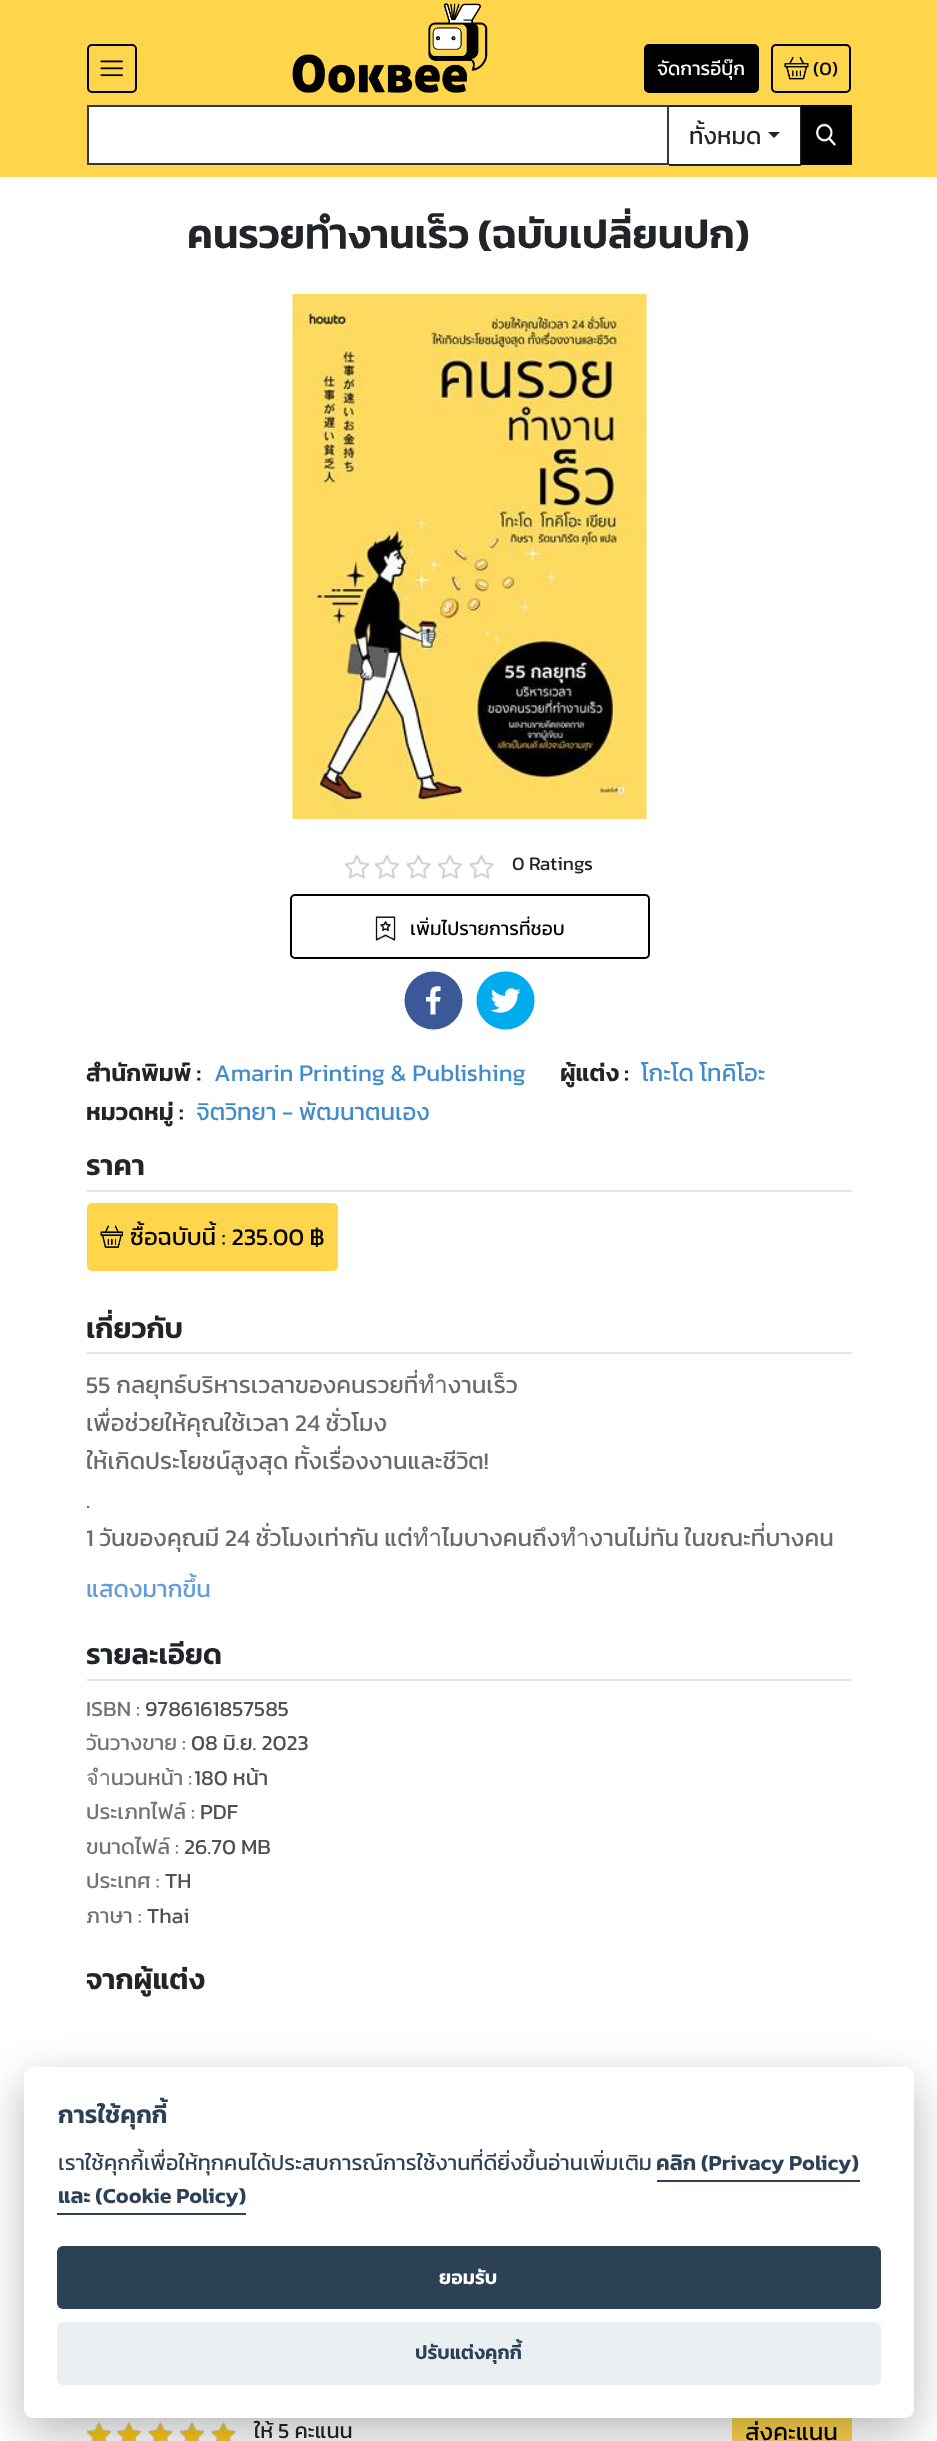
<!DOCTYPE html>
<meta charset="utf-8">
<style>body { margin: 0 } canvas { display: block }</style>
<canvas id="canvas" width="937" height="2441"></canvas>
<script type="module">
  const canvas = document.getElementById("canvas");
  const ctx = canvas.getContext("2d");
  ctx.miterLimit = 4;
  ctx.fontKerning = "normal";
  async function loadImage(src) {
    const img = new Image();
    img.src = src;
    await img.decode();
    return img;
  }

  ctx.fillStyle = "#ffffff";
  ctx.fillRect(0, 0, 937, 2441);
  ctx.fillStyle = "#ffd54c";
  ctx.fillRect(0, 0, 937, 177);
  ctx.beginPath();
  ctx.roundRect(88, 45, 48, 47, 4);
  ctx.strokeStyle = "#000000";
  ctx.lineWidth = 2;
  ctx.stroke();
  ctx.drawImage(await loadImage("img1.png"), 100, 60, 23, 17);
  ctx.drawImage(await loadImage("img2.png"), 292, 3, 196, 90);
  ctx.fillStyle = "#000000";
  ctx.beginPath();
  ctx.roundRect(645, 45, 113, 47, 4);
  ctx.fill();
  ctx.stroke();
  ctx.font = "19.25px Kanit";
  ctx.fillStyle = "#ffffff";
  ctx.fillText("จัดการอีบุ๊ก", 657, 75);
  ctx.beginPath();
  ctx.roundRect(772, 45, 78, 47, 4);
  ctx.stroke();
  ctx.drawImage(await loadImage("img3.png"), 784, 57, 25, 23);
  ctx.fillStyle = "#000000";
  ctx.fillText("(0)", 813, 75);
  ctx.fillStyle = "#ffffff";
  ctx.beginPath();
  ctx.rect(88, 106, 580, 58);
  ctx.fill();
  ctx.strokeStyle = "#363636";
  ctx.stroke();
  ctx.fillRect(669, 107, 131, 57);
  ctx.fillStyle = "#212529";
  ctx.fillRect(669, 105, 132, 2);
  ctx.fillRect(800, 105, 1, 60);
  ctx.fillRect(669, 164, 132, 2);
  ctx.font = "24px Kanit";
  ctx.fillText("ทั้งหมด", 689, 144);
  ctx.beginPath();
  ctx.moveTo(768, 132);
  ctx.lineTo(780, 132);
  ctx.lineTo(774, 138);
  ctx.closePath();
  ctx.fill();
  ctx.fillStyle = "#000000";
  ctx.fillRect(801, 105, 51, 60);
  ctx.drawImage(await loadImage("img4.png"), 816, 123, 20, 23);
  ctx.font = "600 40.75px Kanit";
  ctx.fillStyle = "#212529";
  ctx.fillText("คนรวยทำงานเร็ว (ฉบับเปลี่ยนปก)", 187, 248);
  ctx.drawImage(await loadImage("img5.png"), 292, 294, 355, 525);
  ctx.drawImage(await loadImage("img6.png"), 345, 855, 24, 24);
  ctx.drawImage(await loadImage("img6.png"), 375, 855, 24, 24);
  ctx.drawImage(await loadImage("img7.png"), 406, 855, 25, 24);
  ctx.drawImage(await loadImage("img6.png"), 438, 855, 24, 24);
  ctx.drawImage(await loadImage("img7.png"), 469, 855, 25, 24);
  ctx.font = "19.25px Kanit";
  ctx.fillText("0 Ratings", 512, 870);
  ctx.beginPath();
  ctx.roundRect(291, 895, 358, 63, 4);
  ctx.strokeStyle = "#000000";
  ctx.stroke();
  ctx.drawImage(await loadImage("img8.png"), 375, 916, 21, 25);
  ctx.fillStyle = "#000000";
  ctx.fillText("เพิ่มไปรายการที่ชอบ", 410, 935);
  ctx.fillStyle = "#3b5998";
  ctx.beginPath();
  ctx.arc(433.5, 1000.5, 29, 0, Math.PI * 2);
  ctx.fill();
  ctx.fillStyle = "#ffffff";
  ctx.beginPath();
  ctx.moveTo(435.5, 1014.5);
  ctx.lineTo(435.5, 1001.5);
  ctx.lineTo(440, 1001.5);
  ctx.lineTo(440.5, 997);
  ctx.lineTo(435.5, 997);
  ctx.bezierCurveTo(435.5, 991.5, 435, 991, 440.5, 991);
  ctx.lineTo(440.5, 986.5);
  ctx.bezierCurveTo(436.5, 986, 431, 986.5, 430.5, 991.5);
  ctx.lineTo(430, 997);
  ctx.lineTo(426, 997);
  ctx.lineTo(426, 1001.5);
  ctx.lineTo(430.5, 1001.5);
  ctx.lineTo(430.5, 1014.5);
  ctx.closePath();
  ctx.fill();
  ctx.drawImage(await loadImage("img9.png"), 476, 971, 59, 59);
  ctx.font = "600 24px Kanit";
  ctx.fillStyle = "#212529";
  ctx.fillText("สำนักพิมพ์ :", 86, 1081);
  ctx.font = "24px Kanit";
  ctx.fillStyle = "#428bca";
  ctx.fillText("Amarin Printing & Publishing", 214, 1081);
  ctx.font = "600 24px Kanit";
  ctx.fillStyle = "#212529";
  ctx.fillText("ผู้แต่ง :", 560, 1081);
  ctx.font = "24px Kanit";
  ctx.fillStyle = "#428bca";
  ctx.fillText("โกะโด โทคิโอะ", 641, 1081);
  ctx.font = "600 24px Kanit";
  ctx.fillStyle = "#212529";
  ctx.fillText("หมวดหมู่ :", 86, 1120);
  ctx.font = "24px Kanit";
  ctx.fillStyle = "#428bca";
  ctx.fillText("จิตวิทยา - พัฒนาตนเอง", 196, 1120);
  ctx.fillStyle = "#e6e6e6";
  ctx.fillRect(87, 1190, 765, 2);
  ctx.font = "600 29px Kanit";
  ctx.fillStyle = "#212529";
  ctx.fillText("ราคา", 86, 1175);
  ctx.fillStyle = "#ffd54c";
  ctx.beginPath();
  ctx.roundRect(87, 1203, 251, 68, 5);
  ctx.fill();
  ctx.drawImage(await loadImage("img10.png"), 100, 1225, 23, 23);
  ctx.font = "24px Kanit";
  ctx.fillStyle = "#000000";
  ctx.fillText("ซื้อฉบับนี้ : 235.00 ฿", 130, 1245);
  ctx.fillStyle = "#e6e6e6";
  ctx.fillRect(87, 1352, 765, 2);
  ctx.font = "600 29px Kanit";
  ctx.fillStyle = "#212529";
  ctx.fillText("เกี่ยวกับ", 86, 1338);
  ctx.font = "24px Kanit";
  ctx.fillStyle = "#6a6a6a";
  ctx.fillText("55 กลยุทธ์บริหารเวลาของคนรวยที่ทำงานเร็ว", 86, 1393);
  ctx.save();
  ctx.beginPath();
  ctx.rect(87, 1365, 765, 192);
  ctx.clip();
  ctx.fillText("เพื่อช่วยให้คุณใช้เวลา 24 ชั่วโมง", 86, 1431);
  ctx.fillText("ให้เกิดประโยชน์สูงสุด ทั้งเรื่องงานและชีวิต!", 86, 1469);
  ctx.restore();
  ctx.fillText(".", 86, 1508);
  ctx.fillText("1 วันของคุณมี 24 ชั่วโมงเท่ากัน แต่ทำไมบางคนถึงทำงานไม่ทัน ในขณะที่บางคน", 86, 1546);
  ctx.fillStyle = "#619cdc";
  ctx.fillText("แสดงมากขึ้น", 86, 1597);
  ctx.fillStyle = "#e6e6e6";
  ctx.fillRect(87, 1679, 765, 2);
  ctx.font = "600 29px Kanit";
  ctx.fillStyle = "#212529";
  ctx.fillText("รายละเอียด", 86, 1664);
  ctx.font = "21.6px Kanit";
  ctx.fillStyle = "#737373";
  ctx.fillText("ISBN :", 86, 1716);
  ctx.fillStyle = "#505050";
  ctx.fillText("9786161857585", 145, 1716);
  ctx.fillStyle = "#737373";
  ctx.fillText("วันวางขาย :", 86, 1750);
  ctx.fillStyle = "#505050";
  ctx.fillText("08 มิ.ย. 2023", 191, 1750);
  ctx.fillStyle = "#737373";
  ctx.fillText("จำนวนหน้า :", 86, 1785);
  ctx.fillStyle = "#505050";
  ctx.fillText("180 หน้า", 194, 1785);
  ctx.fillStyle = "#737373";
  ctx.fillText("ประเภทไฟล์ :", 86, 1819);
  ctx.fillStyle = "#505050";
  ctx.fillText("PDF", 200, 1819);
  ctx.fillStyle = "#737373";
  ctx.fillText("ขนาดไฟล์ :", 86, 1854);
  ctx.fillStyle = "#505050";
  ctx.fillText("26.70 MB", 184, 1854);
  ctx.fillStyle = "#737373";
  ctx.fillText("ประเทศ :", 86, 1888);
  ctx.fillStyle = "#505050";
  ctx.fillText("TH", 165, 1888);
  ctx.fillStyle = "#737373";
  ctx.fillText("ภาษา :", 86, 1923);
  ctx.fillStyle = "#505050";
  ctx.fillText("Thai", 147, 1923);
  ctx.font = "600 29px Kanit";
  ctx.fillStyle = "#212529";
  ctx.fillText("จากผู้แต่ง", 86, 1989);
  ctx.drawImage(await loadImage("img11.png"), 87, 2422, 24, 19);
  ctx.drawImage(await loadImage("img12.png"), 87, 2423, 24, 18);
  ctx.drawImage(await loadImage("img11.png"), 117, 2422, 24, 19);
  ctx.drawImage(await loadImage("img12.png"), 117, 2423, 24, 18);
  ctx.drawImage(await loadImage("img13.png"), 148, 2422, 25, 19);
  ctx.drawImage(await loadImage("img14.png"), 148, 2422, 25, 19);
  ctx.drawImage(await loadImage("img11.png"), 180, 2422, 24, 19);
  ctx.drawImage(await loadImage("img12.png"), 180, 2423, 24, 18);
  ctx.drawImage(await loadImage("img15.png"), 211, 2422, 25, 19);
  ctx.drawImage(await loadImage("img16.png"), 211, 2422, 25, 19);
  ctx.font = "21.6px Kanit";
  ctx.fillText("ให้ 5 คะแนน", 254, 2438);
  ctx.fillStyle = "#ffd54c";
  ctx.fillRect(734, 2418, 116, 23);
  ctx.strokeStyle = "#ffd54c";
  ctx.strokeRect(733, 2400, 118, 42);
  ctx.font = "24px Kanit";
  ctx.fillStyle = "#000000";
  ctx.fillText("ส่งคะแนน", 745, 2440);
  ctx.fillStyle = "rgba(2, 2, 3, 0.28)";
  ctx.filter = "blur(22.5px)";
  ctx.beginPath();
  ctx.roundRect(24, 2082, 890, 351, 9);
  ctx.fill();
  ctx.filter = "none";
  ctx.fillStyle = "#ffffff";
  ctx.beginPath();
  ctx.roundRect(24, 2067, 890, 351, 9);
  ctx.fill();
  ctx.font = "600 25px Kanit";
  ctx.fillStyle = "#2d4156";
  ctx.fillText("การใช้คุกกี้", 58, 2123);
  ctx.font = "21.6px Kanit";
  ctx.fillText("เราใช้คุกกี้เพื่อให้ทุกคนได้ประสบการณ์การใช้งานที่ดียิ่งขึ้นอ่านเพิ่มเติม", 58, 2170);
  ctx.font = "600 21.6px Kanit";
  ctx.fillText("คลิก (Privacy Policy)", 656, 2170);
  ctx.fillRect(657, 2180, 203, 2);
  ctx.fillText("และ (Cookie Policy)", 58, 2203);
  ctx.fillRect(57, 2213, 189, 2);
  ctx.beginPath();
  ctx.roundRect(57, 2246, 824, 63, 6);
  ctx.fill();
  ctx.font = "600 19.5px Kanit";
  ctx.fillStyle = "#ffffff";
  ctx.fillText("ยอมรับ", 439, 2284);
  ctx.fillStyle = "#eaeff2";
  ctx.beginPath();
  ctx.roundRect(57, 2322, 824, 63, 6);
  ctx.fill();
  ctx.fillStyle = "#2d4156";
  ctx.fillText("ปรับแต่งคุกกี้", 415, 2359);
</script>
